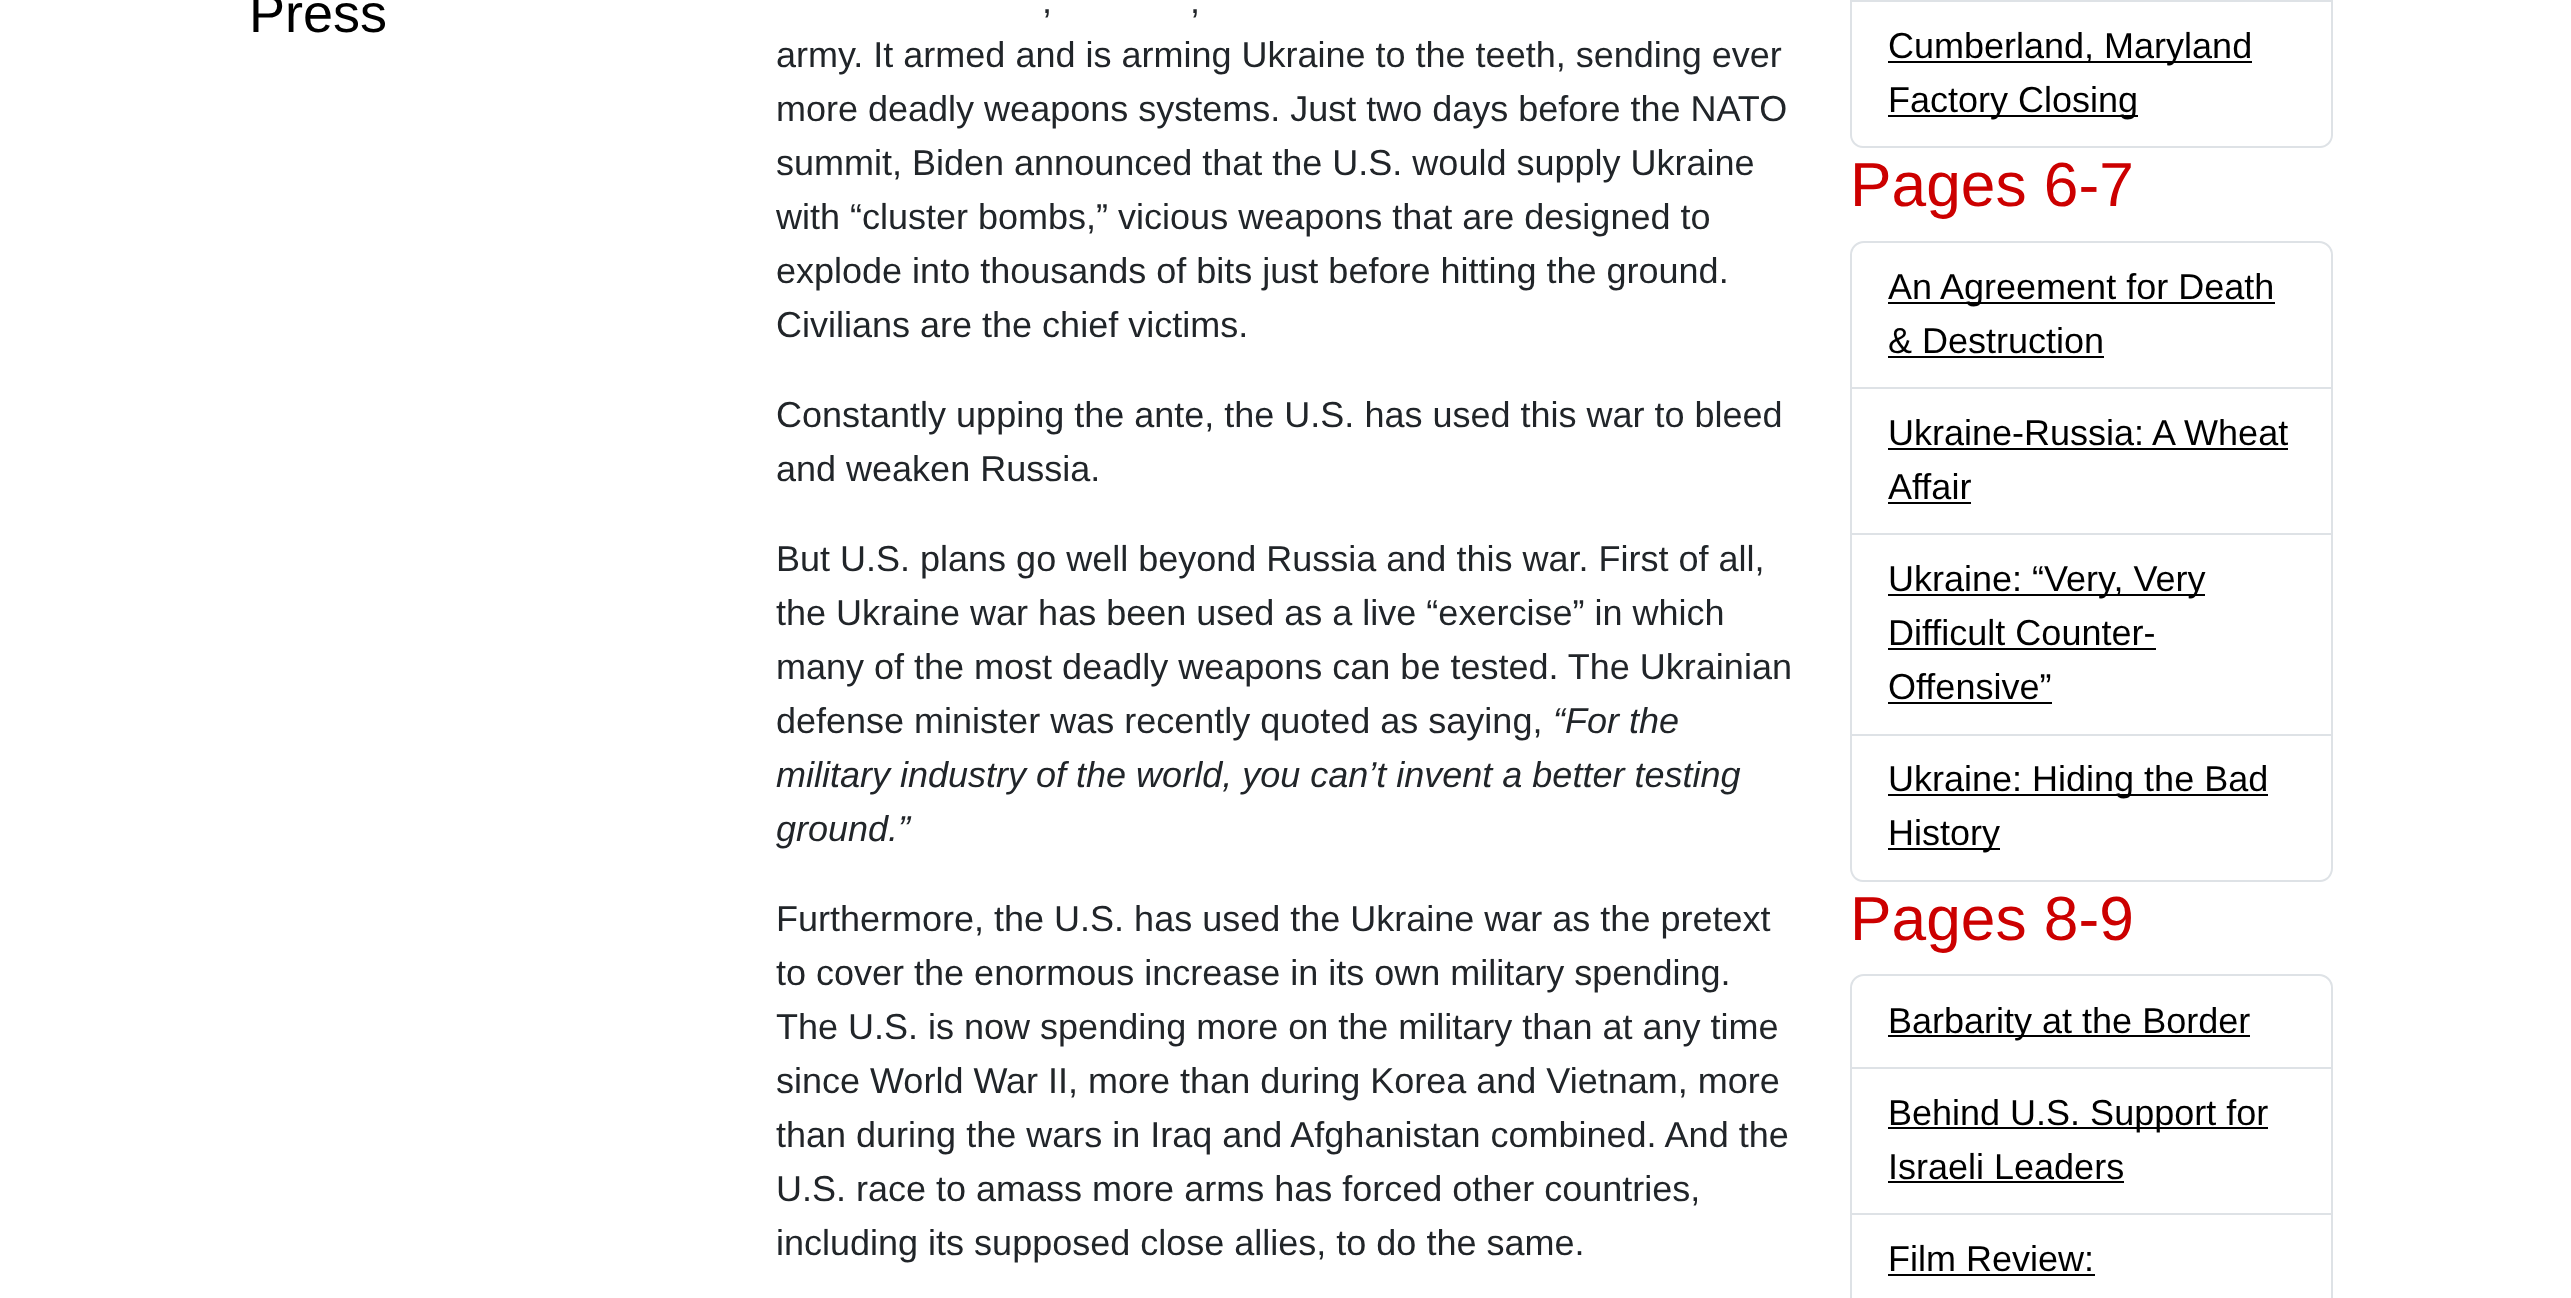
<!DOCTYPE html>
<meta charset="utf-8">
<style>body { margin: 0 } canvas { display: block }</style>
<canvas id="canvas" width="2571" height="1298"></canvas>
<script type="module">
  const canvas = document.getElementById("canvas");
  const ctx = canvas.getContext("2d");
  ctx.miterLimit = 4;
  ctx.fontKerning = "normal";

  ctx.fillStyle = "#ffffff";
  ctx.fillRect(0, 0, 2571, 1298);
  ctx.font = "54px Liberation Sans";
  ctx.fillStyle = "#000000";
  ctx.fillText("Press", 249, 32);
  ctx.font = "36px Liberation Sans";
  ctx.fillStyle = "#212529";
  ctx.fillText(",", 1042, 13);
  ctx.fillText(",", 1190, 13);
  ctx.fillText("army. It armed and is arming Ukraine to the teeth, sending ever", 776, 67);
  ctx.fillText("more deadly weapons systems. Just two days before the NATO", 776, 121);
  ctx.fillText("summit, Biden announced that the U.S. would supply Ukraine", 776, 175);
  ctx.fillText("with “cluster bombs,” vicious weapons that are designed to", 776, 229);
  ctx.fillText("explode into thousands of bits just before hitting the ground.", 776, 283);
  ctx.fillText("Civilians are the chief victims.", 776, 337);
  ctx.fillText("Constantly upping the ante, the U.S. has used this war to bleed", 776, 427);
  ctx.fillText("and weaken Russia.", 776, 481);
  ctx.fillText("But U.S. plans go well beyond Russia and this war. First of all,", 776, 571);
  ctx.fillText("the Ukraine war has been used as a live “exercise” in which", 776, 625);
  ctx.fillText("many of the most deadly weapons can be tested. The Ukrainian", 776, 679);
  ctx.fillText("defense minister was recently quoted as saying,", 776, 733);
  ctx.font = "italic 36px Liberation Sans";
  ctx.fillText("“For the", 1553, 733);
  ctx.fillText("military industry of the world, you can’t invent a better testing", 776, 787);
  ctx.fillText("ground.”", 776, 841);
  ctx.font = "36px Liberation Sans";
  ctx.fillText("Furthermore, the U.S. has used the Ukraine war as the pretext", 776, 931);
  ctx.fillText("to cover the enormous increase in its own military spending.", 776, 985);
  ctx.fillText("The U.S. is now spending more on the military than at any time", 776, 1039);
  ctx.fillText("since World War II, more than during Korea and Vietnam, more", 776, 1093);
  ctx.fillText("than during the wars in Iraq and Afghanistan combined. And the", 776, 1147);
  ctx.fillText("U.S. race to amass more arms has forced other countries,", 776, 1201);
  ctx.fillText("including its supposed close allies, to do the same.", 776, 1255);
  ctx.fillStyle = "#dee2e6";
  ctx.fillRect(1850, 0, 483, 2);
  ctx.beginPath();
  ctx.moveTo(1850, 2);
  ctx.lineTo(2333, 2);
  ctx.lineTo(2333, 135);
  ctx.bezierCurveTo(2333, 142, 2327, 148, 2320, 148);
  ctx.lineTo(1863, 148);
  ctx.bezierCurveTo(1856, 148, 1850, 142, 1850, 135);
  ctx.closePath();
  ctx.moveTo(1852, 2);
  ctx.lineTo(2331, 2);
  ctx.lineTo(2331, 135);
  ctx.bezierCurveTo(2331, 141, 2326, 146, 2320, 146);
  ctx.lineTo(1863, 146);
  ctx.bezierCurveTo(1857, 146, 1852, 141, 1852, 135);
  ctx.closePath();
  ctx.fill("evenodd");
  ctx.fillStyle = "#000000";
  ctx.fillRect(1888, 61, 364, 2);
  ctx.fillText("Cumberland, Maryland", 1888, 58);
  ctx.fillRect(1888, 115, 250, 2);
  ctx.fillText("Factory Closing", 1888, 112);
  ctx.font = "62.25px Liberation Sans";
  ctx.fillStyle = "#cc0000";
  ctx.fillText("Pages 6-7", 1850, 206);
  ctx.beginPath();
  ctx.roundRect(1851, 242, 481, 146, [13, 13, 0, 0]);
  ctx.strokeStyle = "#dee2e6";
  ctx.lineWidth = 2;
  ctx.stroke();
  ctx.fillStyle = "#000000";
  ctx.fillRect(1888, 302, 387, 2);
  ctx.font = "36px Liberation Sans";
  ctx.fillText("An Agreement for Death", 1888, 299);
  ctx.fillText("& Destruction", 1888, 353);
  ctx.fillRect(1888, 356, 216, 2);
  ctx.fillStyle = "#dee2e6";
  ctx.fillRect(2331, 389, 2, 347);
  ctx.fillRect(1850, 533, 483, 2);
  ctx.fillRect(1850, 389, 2, 147);
  ctx.fillStyle = "#000000";
  ctx.fillText("Ukraine-Russia: A Wheat", 1888, 445);
  ctx.fillRect(1888, 448, 400, 2);
  ctx.fillText("Affair", 1888, 499);
  ctx.fillRect(1888, 502, 83, 2);
  ctx.fillStyle = "#dee2e6";
  ctx.fillRect(1850, 734, 483, 2);
  ctx.fillRect(1850, 536, 2, 200);
  ctx.fillStyle = "#000000";
  ctx.fillRect(1888, 594, 317, 2);
  ctx.fillText("Ukraine: “Very, Very", 1888, 591);
  ctx.fillText("Difficult Counter-", 1888, 645);
  ctx.fillRect(1888, 648, 268, 2);
  ctx.fillText("Offensive”", 1888, 699);
  ctx.fillRect(1888, 702, 164, 2);
  ctx.fillStyle = "#dee2e6";
  ctx.beginPath();
  ctx.moveTo(1850, 736);
  ctx.lineTo(2333, 736);
  ctx.lineTo(2333, 868);
  ctx.bezierCurveTo(2333, 876, 2327, 882, 2320, 882);
  ctx.lineTo(1863, 882);
  ctx.bezierCurveTo(1856, 882, 1850, 876, 1850, 868);
  ctx.closePath();
  ctx.moveTo(1852, 736);
  ctx.lineTo(2331, 736);
  ctx.lineTo(2331, 868);
  ctx.bezierCurveTo(2331, 875, 2326, 880, 2320, 880);
  ctx.lineTo(1863, 880);
  ctx.bezierCurveTo(1857, 880, 1852, 875, 1852, 868);
  ctx.closePath();
  ctx.fill("evenodd");
  ctx.fillStyle = "#000000";
  ctx.fillRect(1888, 794, 380, 2);
  ctx.fillText("Ukraine: Hiding the Bad", 1888, 791);
  ctx.fillRect(1888, 848, 112, 2);
  ctx.fillText("History", 1888, 845);
  ctx.font = "62.25px Liberation Sans";
  ctx.fillStyle = "#cc0000";
  ctx.fillText("Pages 8-9", 1850, 940);
  ctx.beginPath();
  ctx.roundRect(1851, 975, 481, 93, [13, 13, 0, 0]);
  ctx.stroke();
  ctx.fillStyle = "#000000";
  ctx.fillRect(1888, 1035, 362, 2);
  ctx.font = "36px Liberation Sans";
  ctx.fillText("Barbarity at the Border", 1888, 1033);
  ctx.fillStyle = "#dee2e6";
  ctx.fillRect(2331, 1069, 2, 229);
  ctx.fillRect(1850, 1213, 483, 2);
  ctx.fillRect(1850, 1069, 2, 229);
  ctx.fillStyle = "#000000";
  ctx.fillRect(1888, 1127, 380, 2);
  ctx.fillText("Behind U.S. Support for", 1888, 1125);
  ctx.fillText("Israeli Leaders", 1888, 1179);
  ctx.fillRect(1888, 1181, 236, 2);
  ctx.fillText("Film Review:", 1888, 1271);
  ctx.fillRect(1888, 1274, 207, 2);
</script>
